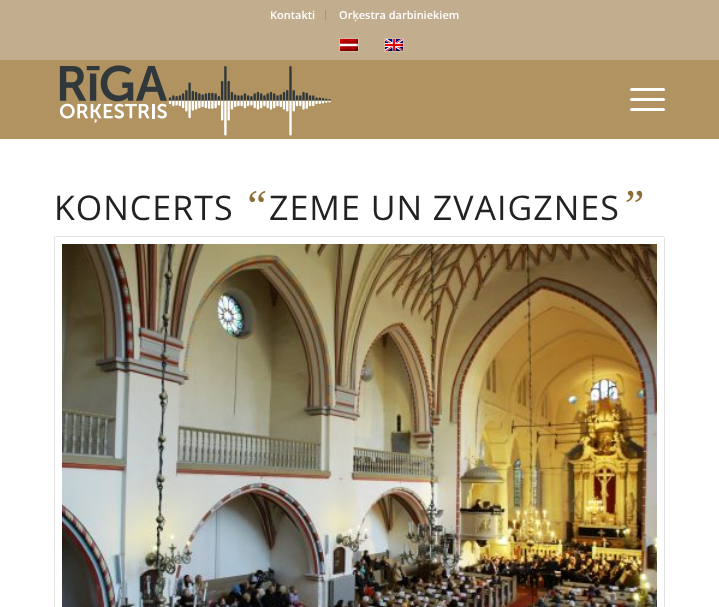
<!DOCTYPE html>
<meta charset="utf-8">
<style>body { margin: 0 } canvas { display: block }</style>
<canvas id="canvas" width="719" height="607"></canvas>
<script type="module">
  const canvas = document.getElementById("canvas");
  const ctx = canvas.getContext("2d");
  ctx.miterLimit = 4;
  ctx.fontKerning = "normal";
  async function loadImage(src) {
    const img = new Image();
    img.src = src;
    await img.decode();
    return img;
  }

  ctx.fillStyle = "#ffffff";
  ctx.fillRect(0, 0, 719, 607);
  ctx.fillStyle = "#c2ad8f";
  ctx.fillRect(0, 0, 719, 60);
  ctx.fillStyle = "#b09360";
  ctx.fillRect(325, 10, 1, 10);
  ctx.font = "600 11px Open Sans";
  ctx.fillStyle = "#ffffff";
  ctx.fillText("Kontakti", 270, 19);
  ctx.fillText("Orķestra darbiniekiem", 339, 19);
  ctx.strokeStyle = "#cebda5";
  ctx.strokeRect(339.5, 38.5, 19, 13);
  ctx.drawImage(await loadImage("img1.png"), 340, 39, 18, 12);
  ctx.strokeRect(384.5, 38.5, 19, 13);
  ctx.drawImage(await loadImage("img2.png"), 385, 39, 18, 12);
  ctx.fillStyle = "#b09360";
  ctx.fillRect(0, 60, 719, 79);
  ctx.drawImage(await loadImage("img3.png"), 59, 65, 272, 71);
  ctx.fillStyle = "#ffffff";
  ctx.beginPath();
  ctx.roundRect(630, 98, 35, 3, 1.5);
  ctx.fill();
  ctx.beginPath();
  ctx.roundRect(630, 88, 35, 3, 1.5);
  ctx.fill();
  ctx.beginPath();
  ctx.roundRect(630, 108, 35, 3, 1.5);
  ctx.fill();
  ctx.letterSpacing = "1px";
  ctx.font = "34px Open Sans";
  ctx.fillStyle = "#222222";
  ctx.fillText("KONCERTS", 54, 220);
  ctx.font = "italic 44px Liberation Serif";
  ctx.fillStyle = "#8c6c35";
  ctx.fillText("“", 243, 220);
  ctx.font = "34px Open Sans";
  ctx.fillStyle = "#222222";
  ctx.fillText("ZEME UN ZVAIGZNES", 269, 220);
  ctx.font = "italic 44px Liberation Serif";
  ctx.fillStyle = "#8c6c35";
  ctx.fillText("”", 620, 220);
  ctx.beginPath();
  ctx.moveTo(56, 236.5);
  ctx.lineTo(663, 236.5);
  ctx.bezierCurveTo(664, 236.5, 664.5, 237, 664.5, 238);
  ctx.lineTo(664.5, 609.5);
  ctx.lineTo(54.5, 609.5);
  ctx.lineTo(54.5, 238);
  ctx.bezierCurveTo(54.5, 237, 55, 236.5, 56, 236.5);
  ctx.closePath();
  ctx.strokeStyle = "#e1e1e1";
  ctx.stroke();
  ctx.drawImage(await loadImage("img4.png"), 62, 244, 595, 363);
</script>
